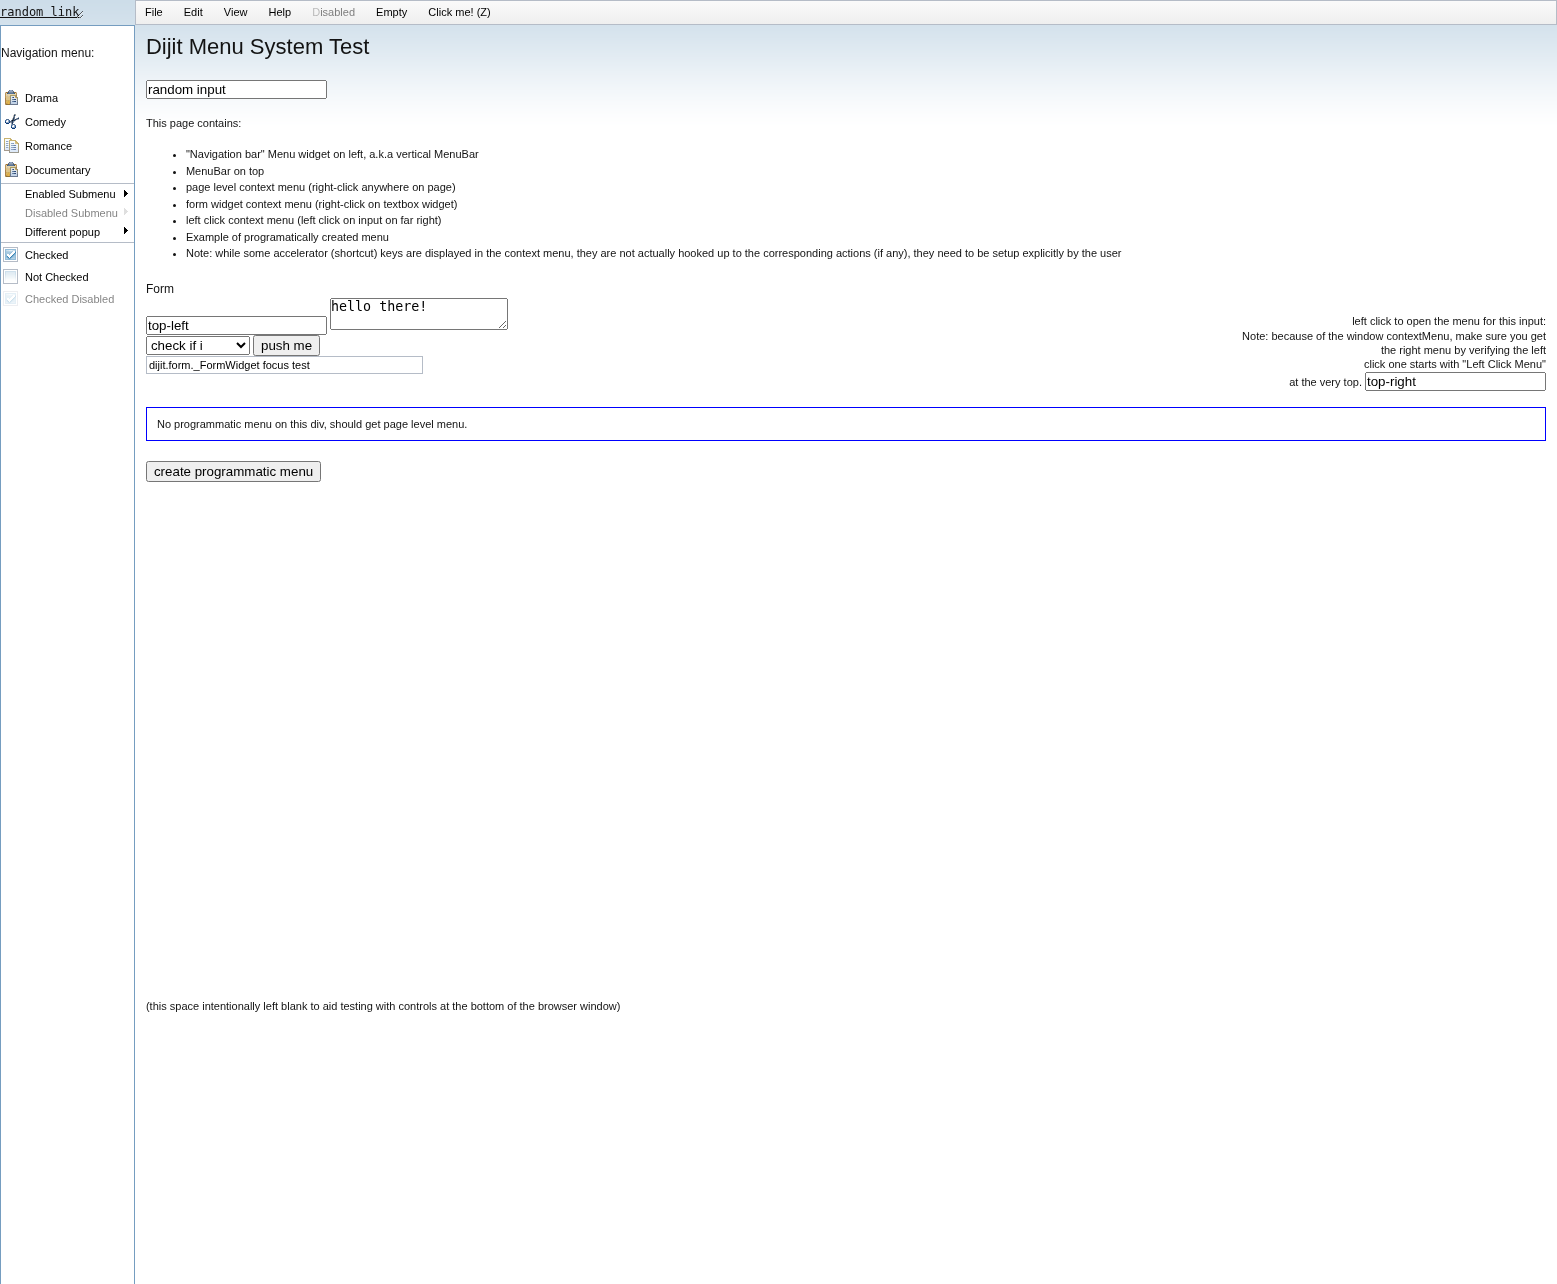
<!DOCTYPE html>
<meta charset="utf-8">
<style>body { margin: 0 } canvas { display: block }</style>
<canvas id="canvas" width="1557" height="1284"></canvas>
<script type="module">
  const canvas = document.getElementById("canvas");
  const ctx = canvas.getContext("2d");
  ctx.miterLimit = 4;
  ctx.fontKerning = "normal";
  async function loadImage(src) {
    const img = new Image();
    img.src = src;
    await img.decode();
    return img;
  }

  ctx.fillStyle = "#ffffff";
  ctx.fillRect(0, 0, 1557, 1284);
  ctx.drawImage(await loadImage("img1.png"), 0, 0, 1557, 1284);
</script>
